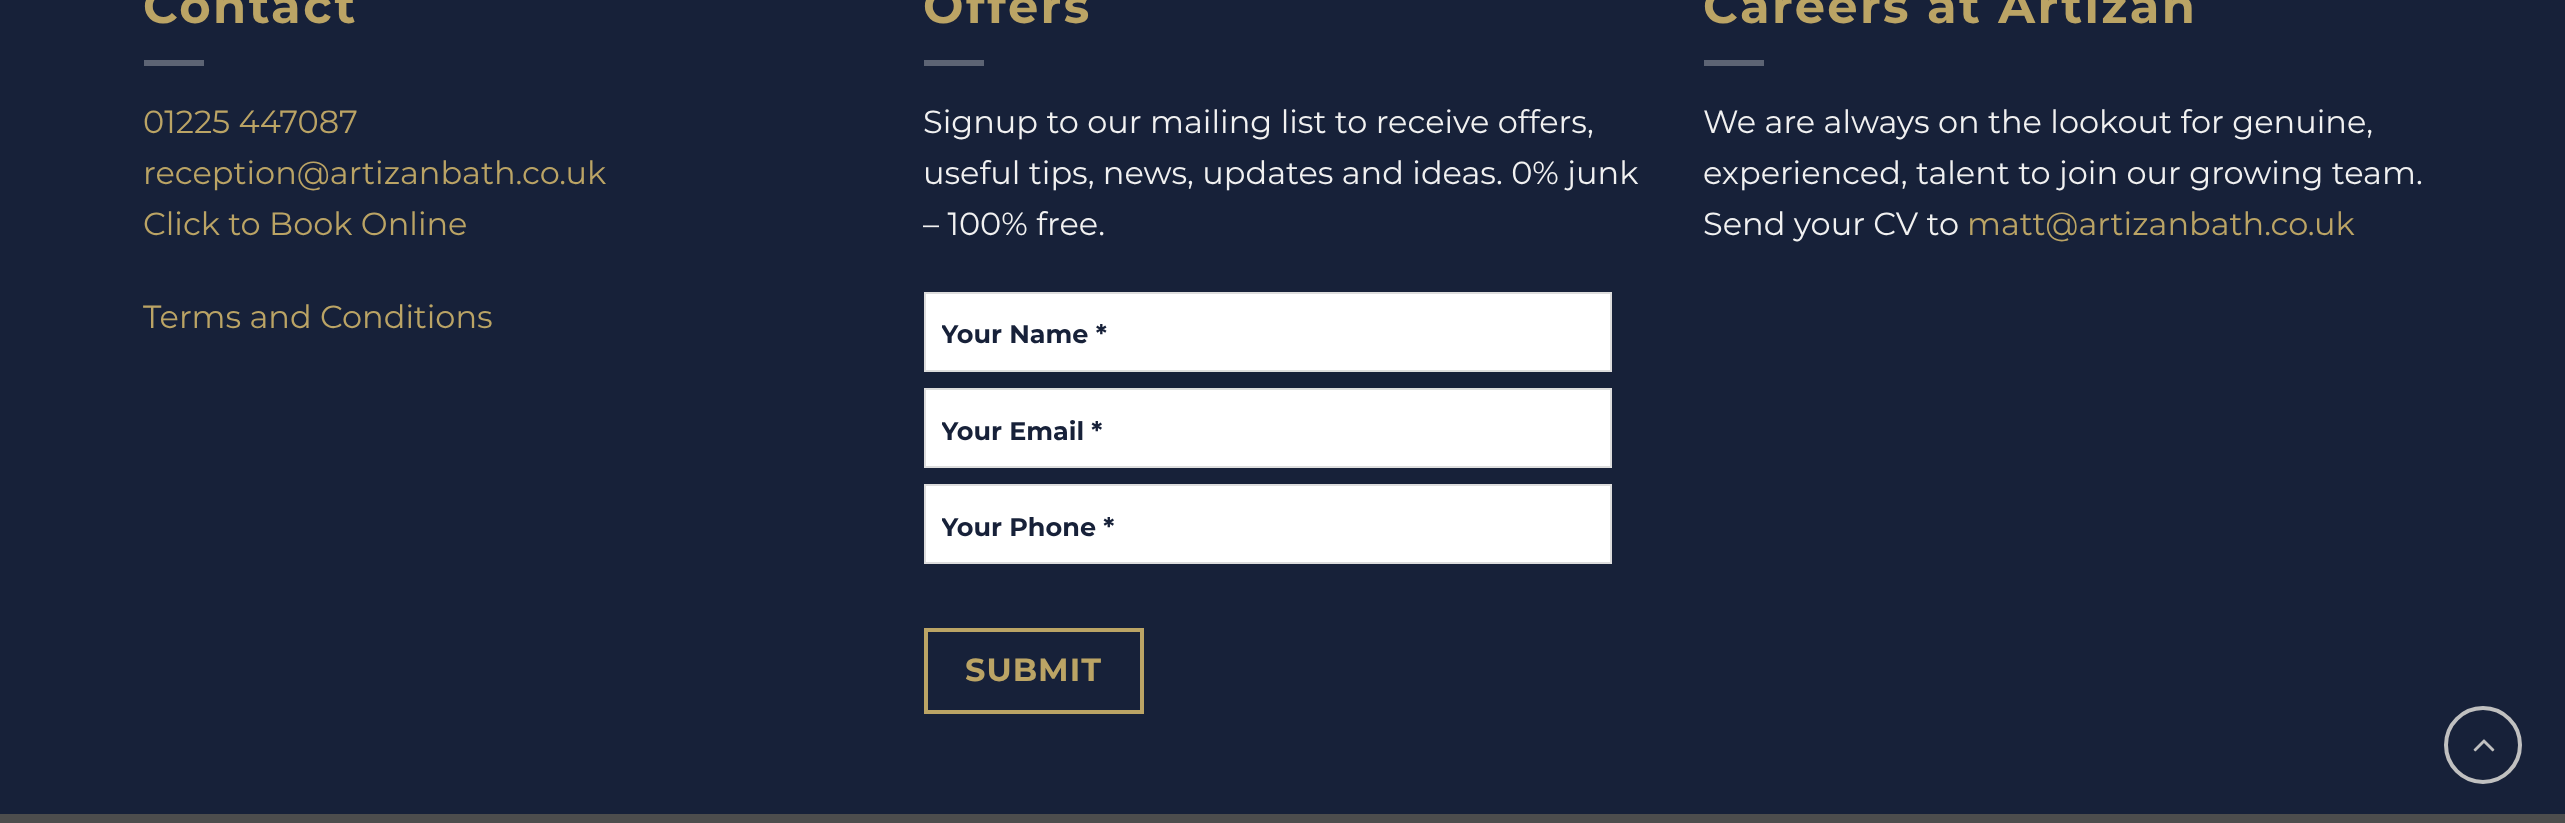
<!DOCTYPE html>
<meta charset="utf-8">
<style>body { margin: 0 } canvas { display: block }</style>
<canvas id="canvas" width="2565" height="823"></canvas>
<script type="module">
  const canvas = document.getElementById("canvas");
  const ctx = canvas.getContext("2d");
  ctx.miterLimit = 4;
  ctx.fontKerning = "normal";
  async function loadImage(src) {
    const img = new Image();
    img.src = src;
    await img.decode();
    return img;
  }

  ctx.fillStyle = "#172139";
  ctx.fillRect(0, 0, 2565, 823);
  ctx.letterSpacing = "2.4px";
  ctx.font = "bold 48px Montserrat";
  ctx.fillStyle = "#bba465";
  ctx.fillText("Contact", 143, 23);
  ctx.fillStyle = "#5d6474";
  ctx.fillRect(144, 60, 60, 6);
  ctx.letterSpacing = "0px";
  ctx.font = "32px Montserrat";
  ctx.fillStyle = "#bba465";
  ctx.fillText("01225 447087", 143, 133);
  ctx.fillText("reception@artizanbath.co.uk", 143, 184);
  ctx.fillText("Click to Book Online", 143, 235);
  ctx.fillText("Terms and Conditions", 143, 328);
  ctx.letterSpacing = "2.4px";
  ctx.font = "bold 48px Montserrat";
  ctx.fillText("Offers", 923, 23);
  ctx.fillStyle = "#5d6474";
  ctx.fillRect(924, 60, 60, 6);
  ctx.letterSpacing = "0px";
  ctx.font = "32px Montserrat";
  ctx.fillStyle = "#f1f1f1";
  ctx.fillText("Signup to our mailing list to receive offers,", 923, 133);
  ctx.fillText("useful tips, news, updates and ideas. 0% junk", 923, 184);
  ctx.fillText("– 100% free.", 923, 235);
  ctx.fillStyle = "#ffffff";
  ctx.beginPath();
  ctx.rect(925, 293, 686, 78);
  ctx.fill();
  ctx.strokeStyle = "#dddddd";
  ctx.lineWidth = 2;
  ctx.stroke();
  ctx.save();
  ctx.beginPath();
  ctx.rect(942, 320, 652, 30);
  ctx.clip();
  ctx.font = "bold 25.5px Montserrat";
  ctx.fillStyle = "#172139";
  ctx.fillText("Your Name *", 941, 343);
  ctx.restore();
  ctx.beginPath();
  ctx.rect(925, 389, 686, 78);
  ctx.fill();
  ctx.stroke();
  ctx.save();
  ctx.beginPath();
  ctx.rect(942, 416, 652, 30);
  ctx.clip();
  ctx.font = "bold 25.5px Montserrat";
  ctx.fillStyle = "#172139";
  ctx.fillText("Your Email *", 941, 440);
  ctx.restore();
  ctx.beginPath();
  ctx.rect(925, 485, 686, 78);
  ctx.fill();
  ctx.stroke();
  ctx.save();
  ctx.beginPath();
  ctx.rect(942, 512, 652, 30);
  ctx.clip();
  ctx.font = "bold 25.5px Montserrat";
  ctx.fillStyle = "#172139";
  ctx.fillText("Your Phone *", 941, 536);
  ctx.restore();
  ctx.strokeStyle = "#bba465";
  ctx.lineWidth = 4;
  ctx.strokeRect(926, 630, 216, 82);
  ctx.letterSpacing = "1px";
  ctx.font = "bold 32px Montserrat";
  ctx.fillStyle = "#bba465";
  ctx.fillText("SUBMIT", 965, 681);
  ctx.letterSpacing = "2.4px";
  ctx.font = "bold 48px Montserrat";
  ctx.fillText("Careers at Artizan", 1703, 23);
  ctx.fillStyle = "#5d6474";
  ctx.fillRect(1704, 60, 60, 6);
  ctx.letterSpacing = "0px";
  ctx.font = "32px Montserrat";
  ctx.fillStyle = "#f1f1f1";
  ctx.fillText("We are always on the lookout for genuine,", 1703, 133);
  ctx.fillText("experienced, talent to join our growing team.", 1703, 184);
  ctx.fillText("Send your CV to", 1703, 235);
  ctx.fillStyle = "#bba465";
  ctx.fillText("matt@artizanbath.co.uk", 1967, 235);
  ctx.beginPath();
  ctx.arc(2483, 745, 37, 0, Math.PI * 2);
  ctx.strokeStyle = "#c0c0c0";
  ctx.stroke();
  ctx.drawImage(await loadImage("img1.png"), 2473, 739, 22, 13);
  ctx.fillStyle = "#4d4d4d";
  ctx.fillRect(0, 814, 2565, 9);
</script>
